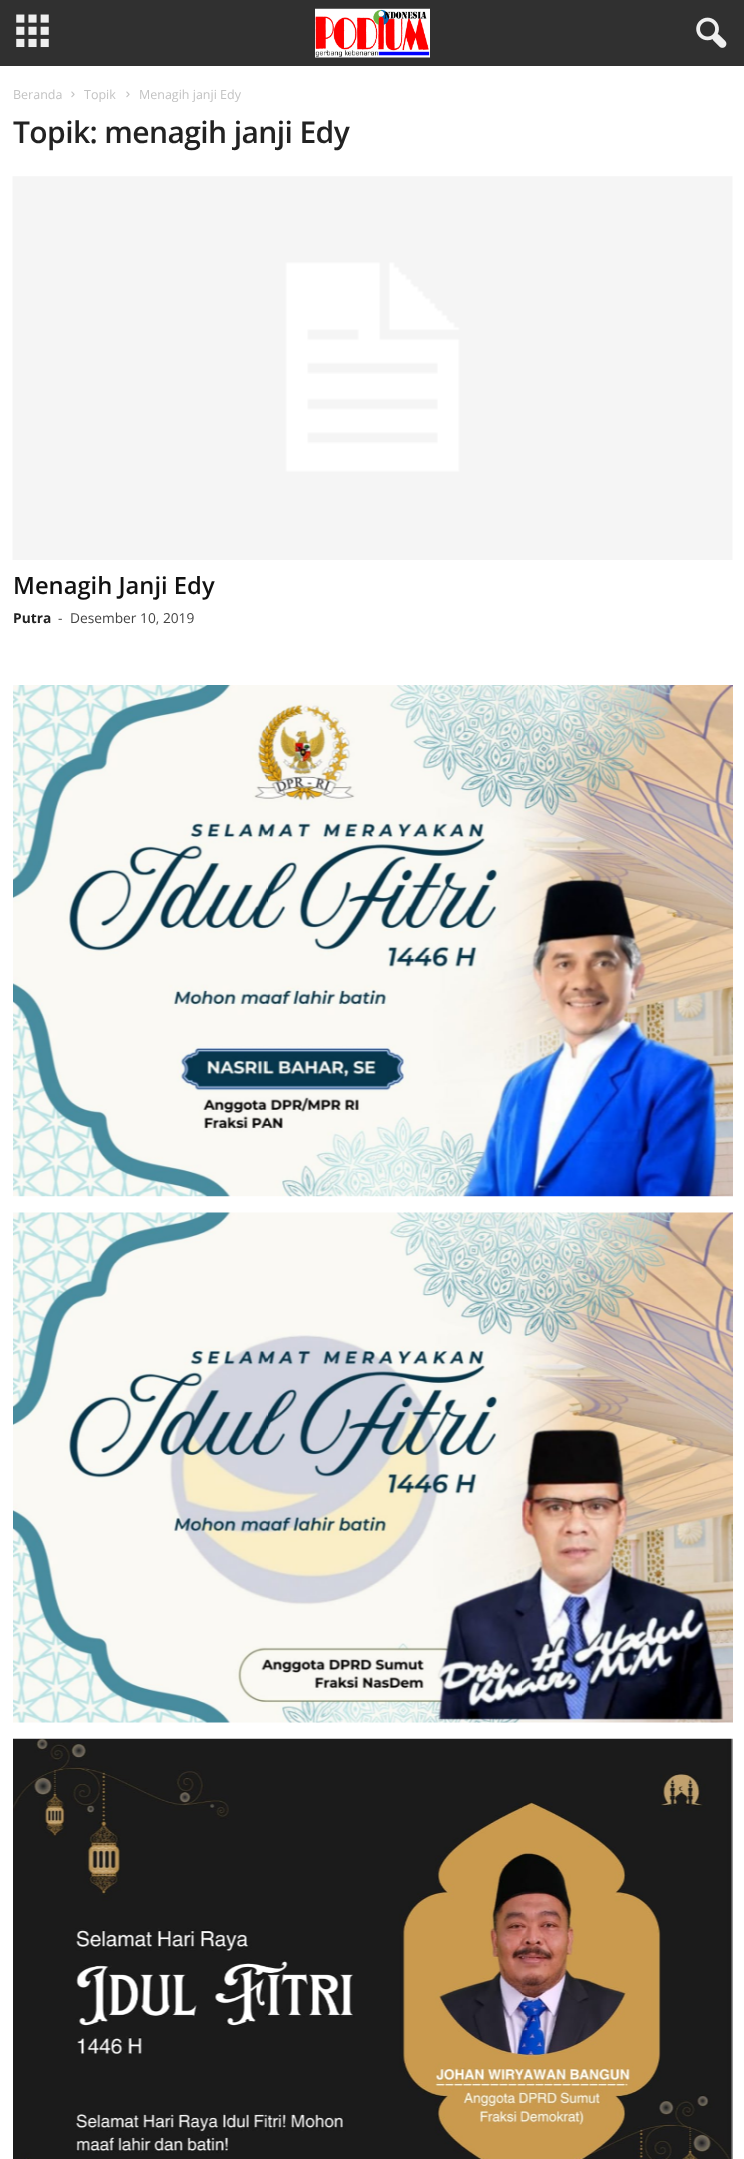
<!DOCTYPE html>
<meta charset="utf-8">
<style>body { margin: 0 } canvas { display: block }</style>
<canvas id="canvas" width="744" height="2159"></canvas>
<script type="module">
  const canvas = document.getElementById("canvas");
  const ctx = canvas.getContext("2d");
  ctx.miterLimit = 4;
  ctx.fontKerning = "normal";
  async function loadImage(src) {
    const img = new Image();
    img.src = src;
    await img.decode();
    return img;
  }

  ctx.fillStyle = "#ffffff";
  ctx.fillRect(0, 0, 744, 2159);
  ctx.fillStyle = "#303030";
  ctx.fillRect(0, 0, 744, 66);
  ctx.drawImage(await loadImage("img1.png"), 16, 14, 33, 34);
  ctx.drawImage(await loadImage("img2.png"), 315, 8, 115, 50);
  ctx.drawImage(await loadImage("img3.png"), 696, 17, 31, 31);
  ctx.font = "12.5px Open Sans";
  ctx.fillStyle = "#c3c3c3";
  ctx.fillText("Beranda", 13, 99);
  ctx.drawImage(await loadImage("img4.png"), 71, 91, 4, 7);
  ctx.fillText("Topik", 84, 99);
  ctx.drawImage(await loadImage("img4.png"), 126, 91, 4, 7);
  ctx.fillText("Menagih janji Edy", 139, 99);
  ctx.letterSpacing = "-0.6px";
  ctx.font = "600 30px Open Sans";
  ctx.fillStyle = "#222222";
  ctx.fillText("Topik: menagih janji Edy", 13, 143);
  ctx.drawImage(await loadImage("img5.png"), 12, 176, 721, 384);
  ctx.letterSpacing = "0px";
  ctx.font = "600 23.75px Open Sans";
  ctx.fillStyle = "#111111";
  ctx.fillText("Menagih Janji Edy", 13, 594);
  ctx.font = "bold 13.75px Open Sans";
  ctx.fillStyle = "#222222";
  ctx.fillText("Putra", 13, 623);
  ctx.font = "13.75px Open Sans";
  ctx.fillStyle = "#444444";
  ctx.fillText("-", 58, 623);
  ctx.fillText("Desember 10, 2019", 70, 623);
  ctx.drawImage(await loadImage("img6.png"), 13, 685, 720, 512);
  ctx.drawImage(await loadImage("img7.png"), 13, 1212, 720, 511);
  ctx.drawImage(await loadImage("img8.png"), 13, 1738, 720, 421);
</script>
